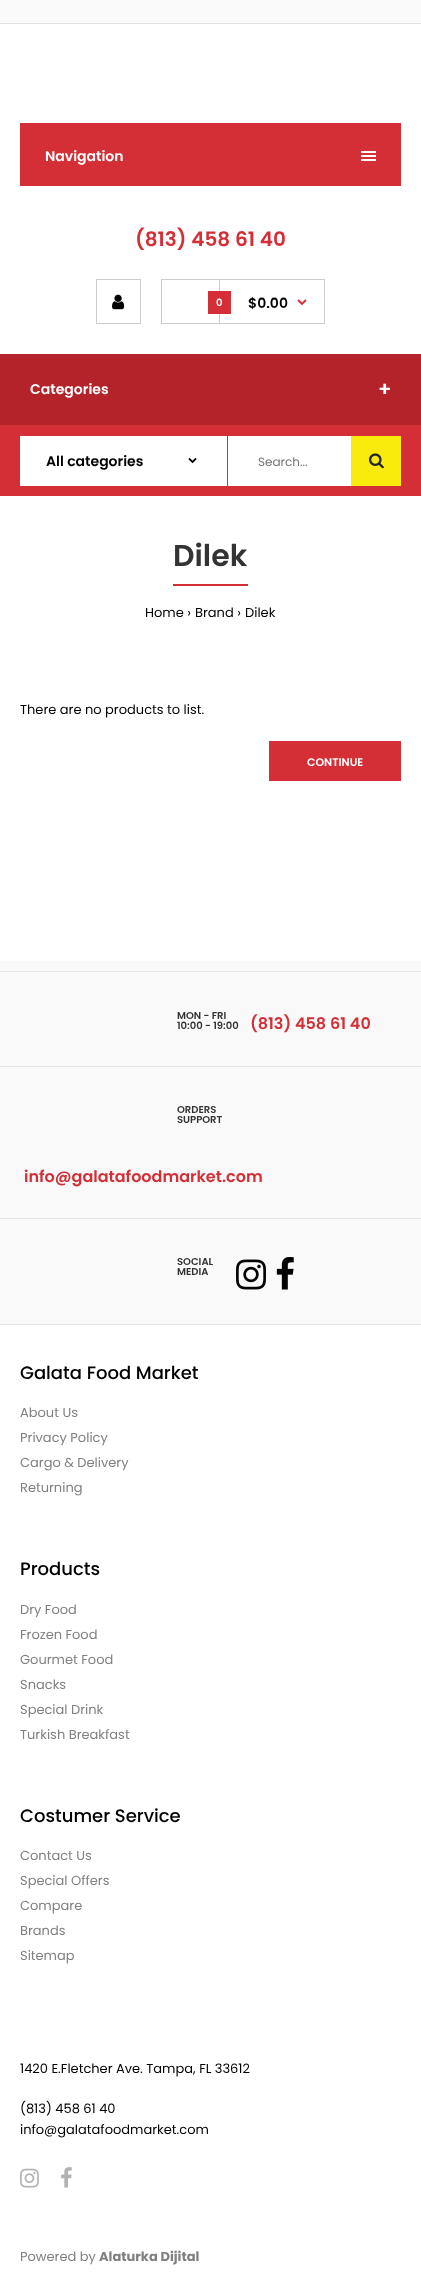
<!DOCTYPE html>
<meta charset="utf-8">
<style>body { margin: 0 } canvas { display: block }</style>
<canvas id="canvas" width="421" height="2291"></canvas>
<script type="module">
  const canvas = document.getElementById("canvas");
  const ctx = canvas.getContext("2d");
  ctx.miterLimit = 4;
  ctx.fontKerning = "normal";
  async function loadImage(src) {
    const img = new Image();
    img.src = src;
    await img.decode();
    return img;
  }

  ctx.fillStyle = "#ffffff";
  ctx.fillRect(0, 0, 421, 2291);
  ctx.fillStyle = "#fafafa";
  ctx.fillRect(0, 0, 421, 23);
  ctx.fillStyle = "#e1e1e1";
  ctx.fillRect(0, 23, 421, 1);
  ctx.fillStyle = "#d42f37";
  ctx.fillRect(20, 123, 381, 63);
  ctx.font = "600 14px Poppins";
  ctx.fillStyle = "#ffffff";
  ctx.fillText("Navigation", 45, 161);
  ctx.fillRect(361, 151, 15, 2);
  ctx.fillRect(361, 155, 15, 2);
  ctx.fillRect(361, 159, 15, 2);
  ctx.font = "600 20px Poppins";
  ctx.fillStyle = "#d42f37";
  ctx.fillText("(813) 458 61 40", 135, 246);
  ctx.strokeStyle = "#cccccc";
  ctx.strokeRect(96.5, 279.5, 44, 44);
  ctx.drawImage(await loadImage("img1.png"), 112, 294, 13, 16);
  ctx.strokeRect(161.5, 279.5, 163, 44);
  ctx.fillStyle = "#cccccc";
  ctx.fillRect(219, 280, 1, 43);
  ctx.fillStyle = "#d42f37";
  ctx.fillRect(208, 291, 23, 23);
  ctx.font = "600 10px Poppins";
  ctx.fillStyle = "#ffffff";
  ctx.fillText("0", 216, 306);
  ctx.font = "600 14px Poppins";
  ctx.fillStyle = "#020202";
  ctx.fillText("$0.00", 248, 308);
  ctx.drawImage(await loadImage("img2.png"), 297, 299, 10, 7);
  ctx.fillStyle = "#d42f37";
  ctx.fillRect(0, 425, 421, 71);
  ctx.fillStyle = "#b4232a";
  ctx.fillRect(0, 354, 421, 71);
  ctx.fillStyle = "#ffffff";
  ctx.fillText("Categories", 30, 394);
  ctx.font = "600 20px Poppins";
  ctx.fillText("+", 378, 396);
  ctx.fillRect(20, 436, 331, 50);
  ctx.fillStyle = "#d42f37";
  ctx.fillRect(227, 436, 1, 50);
  ctx.font = "600 14px Poppins";
  ctx.fillStyle = "#020202";
  ctx.fillText("All categories", 46, 466);
  ctx.drawImage(await loadImage("img3.png"), 188, 458, 9, 6);
  ctx.font = "12px Poppins";
  ctx.fillStyle = "#757575";
  ctx.fillText("Search...", 258, 466);
  ctx.fillStyle = "#f8eb0c";
  ctx.fillRect(351, 436, 50, 50);
  ctx.drawImage(await loadImage("img4.png"), 369, 453, 15, 16);
  ctx.fillStyle = "#d42f37";
  ctx.fillRect(173, 584, 75, 2);
  ctx.font = "600 30px Poppins";
  ctx.fillStyle = "#333333";
  ctx.fillText("Dilek", 173, 566);
  ctx.font = "13px Poppins";
  ctx.fillStyle = "#020202";
  ctx.fillText("Home ›", 145, 617);
  ctx.fillText("Brand ›", 195, 617);
  ctx.fillText("Dilek", 245, 617);
  ctx.fillText("There are no products to list.", 20, 714);
  ctx.fillStyle = "#d42f37";
  ctx.fillRect(269, 741, 132, 40);
  ctx.font = "600 11px Poppins";
  ctx.fillStyle = "#ffffff";
  ctx.fillText("CONTINUE", 307, 766);
  ctx.fillStyle = "#f9f9f9";
  ctx.fillRect(0, 961, 421, 363);
  ctx.fillStyle = "#e5e5e5";
  ctx.fillRect(0, 971, 421, 1);
  ctx.font = "600 10px Poppins";
  ctx.fillStyle = "#333333";
  ctx.fillText("MON - FRI", 177, 1019);
  ctx.fillText("10:00 - 19:00", 177, 1029);
  ctx.font = "600 16px Poppins";
  ctx.fillStyle = "#d42f37";
  ctx.fillText("(813) 458 61 40", 250, 1029);
  ctx.fillStyle = "#e5e5e5";
  ctx.fillRect(0, 1066, 421, 1);
  ctx.font = "600 10px Poppins";
  ctx.fillStyle = "#333333";
  ctx.fillText("ORDERS", 177, 1113);
  ctx.fillText("SUPPORT", 177, 1123);
  ctx.font = "600 16px Poppins";
  ctx.fillStyle = "#d42f37";
  ctx.fillText("info@galatafoodmarket.com", 24, 1182);
  ctx.fillStyle = "#e5e5e5";
  ctx.fillRect(0, 1218, 421, 1);
  ctx.font = "600 10px Poppins";
  ctx.fillStyle = "#333333";
  ctx.fillText("SOCIAL", 177, 1265);
  ctx.fillText("MEDIA", 177, 1275);
  ctx.drawImage(await loadImage("img5.png"), 236, 1259, 30, 31);
  ctx.drawImage(await loadImage("img6.png"), 276, 1257, 18, 33);
  ctx.fillStyle = "#e5e5e5";
  ctx.fillRect(0, 1324, 421, 1);
  ctx.font = "500 18px Poppins";
  ctx.fillStyle = "#020202";
  ctx.fillText("Galata Food Market", 20, 1379);
  ctx.font = "13px Poppins";
  ctx.fillStyle = "#808080";
  ctx.fillText("About Us", 20, 1417);
  ctx.fillText("Privacy Policy", 20, 1442);
  ctx.fillText("Cargo & Delivery", 20, 1467);
  ctx.fillText("Returning", 20, 1492);
  ctx.font = "500 18px Poppins";
  ctx.fillStyle = "#020202";
  ctx.fillText("Products", 20, 1575);
  ctx.font = "13px Poppins";
  ctx.fillStyle = "#808080";
  ctx.fillText("Dry Food", 20, 1614);
  ctx.fillText("Frozen Food", 20, 1639);
  ctx.fillText("Gourmet Food", 20, 1664);
  ctx.fillText("Snacks", 20, 1689);
  ctx.fillText("Special Drink", 20, 1714);
  ctx.fillText("Turkish Breakfast", 20, 1739);
  ctx.font = "500 18px Poppins";
  ctx.fillStyle = "#020202";
  ctx.fillText("Costumer Service", 20, 1822);
  ctx.font = "13px Poppins";
  ctx.fillStyle = "#808080";
  ctx.fillText("Contact Us", 20, 1860);
  ctx.fillText("Special Offers", 20, 1885);
  ctx.fillText("Compare", 20, 1910);
  ctx.fillText("Brands", 20, 1935);
  ctx.fillText("Sitemap", 20, 1960);
  ctx.fillStyle = "#020202";
  ctx.fillText("1420 E.Fletcher Ave. Tampa, FL 33612", 20, 2073);
  ctx.fillText("(813) 458 61 40", 20, 2113);
  ctx.fillText("info@galatafoodmarket.com", 20, 2134);
  ctx.drawImage(await loadImage("img7.png"), 20, 2168, 19, 20);
  ctx.drawImage(await loadImage("img8.png"), 61, 2167, 11, 21);
  ctx.fillStyle = "#808080";
  ctx.fillText("Powered by", 20, 2261);
  ctx.font = "bold 13px Poppins";
  ctx.fillText("Alaturka Dijital", 99, 2261);
</script>
